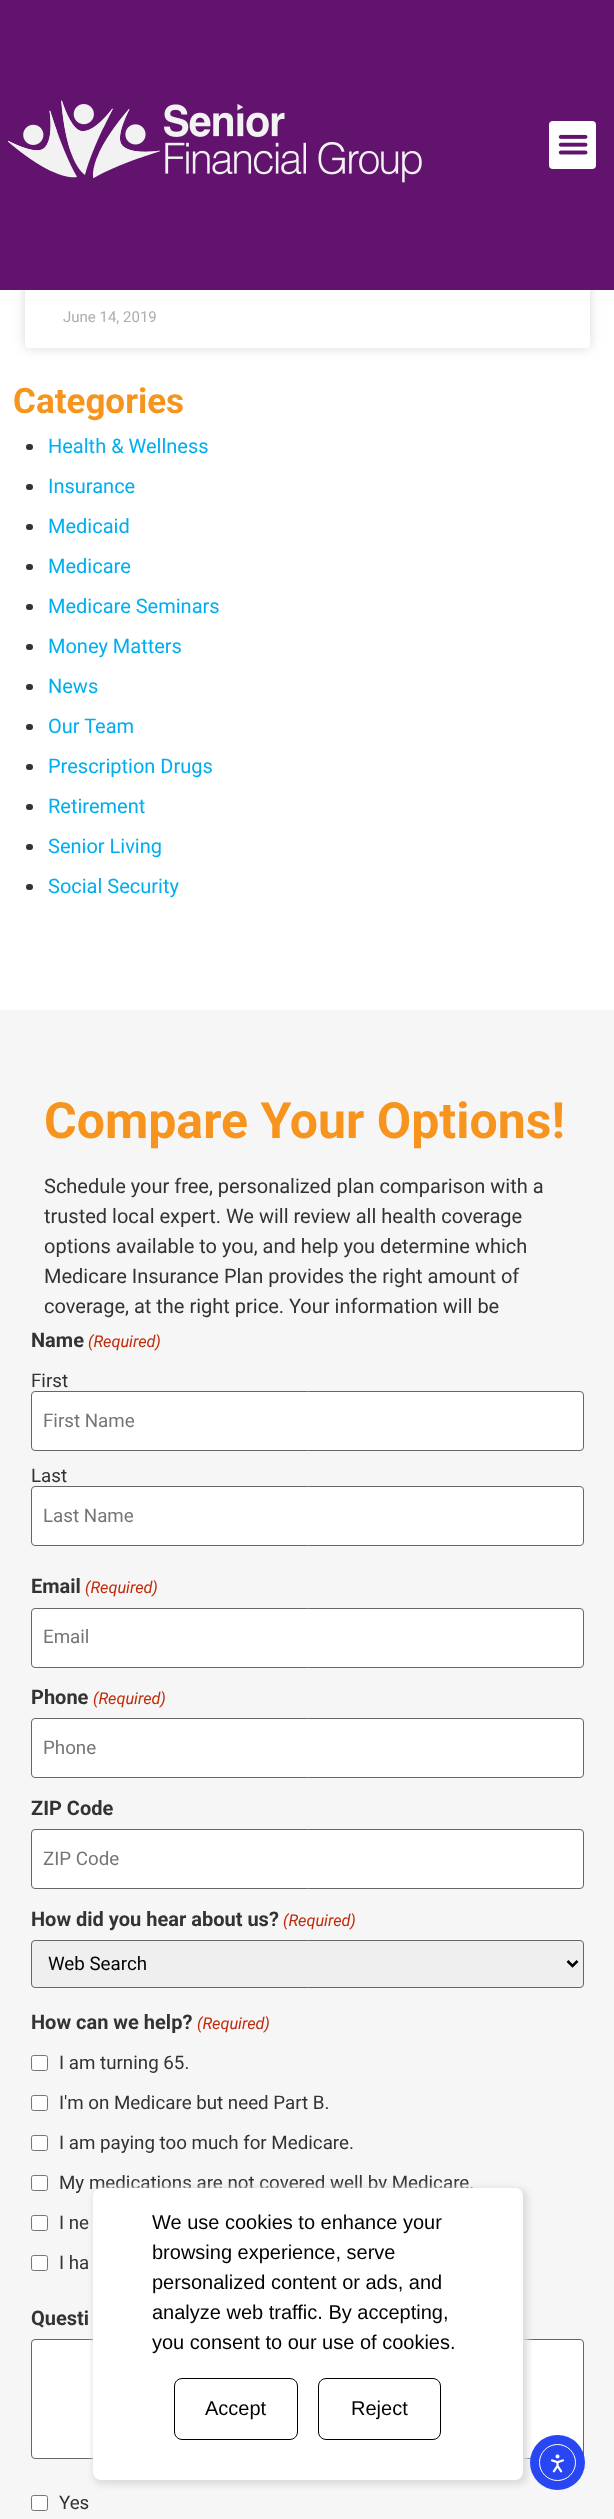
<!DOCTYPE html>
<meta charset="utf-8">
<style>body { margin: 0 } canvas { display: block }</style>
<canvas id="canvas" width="614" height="2519"></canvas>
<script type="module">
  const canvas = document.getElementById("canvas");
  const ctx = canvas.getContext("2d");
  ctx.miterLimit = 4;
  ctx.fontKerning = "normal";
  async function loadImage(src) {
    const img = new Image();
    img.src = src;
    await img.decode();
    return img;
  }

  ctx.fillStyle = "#ffffff";
  ctx.fillRect(0, 0, 614, 2519);
  ctx.fillStyle = "rgba(0, 0, 0, 0.15)";
  ctx.filter = "blur(6px)";
  ctx.beginPath();
  ctx.roundRect(25, -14, 565, 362, 4);
  ctx.fill();
  ctx.filter = "none";
  ctx.fillStyle = "#ffffff";
  ctx.beginPath();
  ctx.roundRect(25, -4, 565, 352, 4);
  ctx.fill();
  ctx.fillStyle = "#62136d";
  ctx.fillRect(0, 0, 614, 290);
  ctx.drawImage(await loadImage("img1.png"), 7, 100, 415, 83);
  ctx.fillStyle = "#ffffff";
  ctx.beginPath();
  ctx.roundRect(549, 121, 47, 48, 4);
  ctx.fill();
  ctx.drawImage(await loadImage("img2.png"), 558, 134, 30, 21);
  ctx.font = "15px Roboto";
  ctx.fillStyle = "#adadad";
  ctx.fillText("June 14, 2019", 63, 322);
  ctx.font = "bold 35px Roboto";
  ctx.fillStyle = "#f7941d";
  ctx.fillText("Categories", 13, 413);
  ctx.fillStyle = "#333333";
  ctx.beginPath();
  ctx.roundRect(26, 444, 7, 6, 3);
  ctx.fill();
  ctx.font = "20px Roboto";
  ctx.fillStyle = "#00aeef";
  ctx.fillText("Health & Wellness", 48, 453);
  ctx.fillStyle = "#333333";
  ctx.beginPath();
  ctx.roundRect(26, 484, 7, 6, 3);
  ctx.fill();
  ctx.fillStyle = "#00aeef";
  ctx.fillText("Insurance", 48, 493);
  ctx.fillStyle = "#333333";
  ctx.beginPath();
  ctx.roundRect(26, 524, 7, 6, 3);
  ctx.fill();
  ctx.fillStyle = "#00aeef";
  ctx.fillText("Medicaid", 48, 533);
  ctx.fillStyle = "#333333";
  ctx.beginPath();
  ctx.roundRect(26, 564, 7, 6, 3);
  ctx.fill();
  ctx.fillStyle = "#00aeef";
  ctx.fillText("Medicare", 48, 573);
  ctx.fillStyle = "#333333";
  ctx.beginPath();
  ctx.roundRect(26, 604, 7, 6, 3);
  ctx.fill();
  ctx.fillStyle = "#00aeef";
  ctx.fillText("Medicare Seminars", 48, 613);
  ctx.fillStyle = "#333333";
  ctx.beginPath();
  ctx.roundRect(26, 644, 7, 6, 3);
  ctx.fill();
  ctx.fillStyle = "#00aeef";
  ctx.fillText("Money Matters", 48, 653);
  ctx.fillStyle = "#333333";
  ctx.beginPath();
  ctx.roundRect(26, 684, 7, 6, 3);
  ctx.fill();
  ctx.fillStyle = "#00aeef";
  ctx.fillText("News", 48, 693);
  ctx.fillStyle = "#333333";
  ctx.beginPath();
  ctx.roundRect(26, 724, 7, 6, 3);
  ctx.fill();
  ctx.fillStyle = "#00aeef";
  ctx.fillText("Our Team", 48, 733);
  ctx.fillStyle = "#333333";
  ctx.beginPath();
  ctx.roundRect(26, 764, 7, 6, 3);
  ctx.fill();
  ctx.fillStyle = "#00aeef";
  ctx.fillText("Prescription Drugs", 48, 773);
  ctx.fillStyle = "#333333";
  ctx.beginPath();
  ctx.roundRect(26, 804, 7, 6, 3);
  ctx.fill();
  ctx.fillStyle = "#00aeef";
  ctx.fillText("Retirement", 48, 813);
  ctx.fillStyle = "#333333";
  ctx.beginPath();
  ctx.roundRect(26, 844, 7, 6, 3);
  ctx.fill();
  ctx.fillStyle = "#00aeef";
  ctx.fillText("Senior Living", 48, 853);
  ctx.fillStyle = "#333333";
  ctx.beginPath();
  ctx.roundRect(26, 884, 7, 6, 3);
  ctx.fill();
  ctx.fillStyle = "#00aeef";
  ctx.fillText("Social Security", 48, 893);
  ctx.fillStyle = "#f6f6f6";
  ctx.fillRect(0, 1010, 614, 1509);
  ctx.font = "bold 50px Roboto";
  ctx.fillStyle = "#f7941d";
  ctx.fillText("Compare Your Options!", 44, 1138);
  ctx.font = "20px Roboto";
  ctx.fillStyle = "#333333";
  ctx.fillText("Schedule your free, personalized plan comparison with a", 44, 1193);
  ctx.fillText("trusted local expert. We will review all health coverage", 44, 1223);
  ctx.fillText("options available to you, and help you determine which", 44, 1253);
  ctx.fillText("Medicare Insurance Plan provides the right amount of", 44, 1283);
  ctx.fillText("coverage, at the right price. Your information will be", 44, 1313);
  ctx.font = "bold 20px Roboto";
  ctx.fillText("Name", 31, 1347);
  ctx.font = "italic 16.25px Roboto";
  ctx.fillStyle = "#c02b0a";
  ctx.fillText("(Required)", 88, 1347);
  ctx.font = "18.75px Roboto";
  ctx.fillStyle = "#333333";
  ctx.fillText("First", 31, 1387);
  ctx.fillStyle = "#ffffff";
  ctx.beginPath();
  ctx.roundRect(31.5, 1391.5, 552, 59, 3.5);
  ctx.fill();
  ctx.strokeStyle = "#666666";
  ctx.stroke();
  ctx.fillStyle = "#757575";
  ctx.fillText("First Name", 43, 1427);
  ctx.fillStyle = "#333333";
  ctx.fillText("Last", 31, 1482);
  ctx.fillStyle = "#ffffff";
  ctx.beginPath();
  ctx.roundRect(31.5, 1486.5, 552, 59, 3.5);
  ctx.fill();
  ctx.stroke();
  ctx.fillStyle = "#757575";
  ctx.fillText("Last Name", 43, 1522);
  ctx.font = "bold 20px Roboto";
  ctx.fillStyle = "#333333";
  ctx.fillText("Email", 31, 1593);
  ctx.font = "italic 16.25px Roboto";
  ctx.fillStyle = "#c02b0a";
  ctx.fillText("(Required)", 85, 1593);
  ctx.fillStyle = "#ffffff";
  ctx.beginPath();
  ctx.roundRect(31.5, 1608.5, 552, 59, 3.5);
  ctx.fill();
  ctx.stroke();
  ctx.font = "18.75px Roboto";
  ctx.fillStyle = "#757575";
  ctx.fillText("Email", 43, 1643);
  ctx.font = "bold 20px Roboto";
  ctx.fillStyle = "#333333";
  ctx.fillText("Phone", 31, 1704);
  ctx.font = "italic 16.25px Roboto";
  ctx.fillStyle = "#c02b0a";
  ctx.fillText("(Required)", 93, 1704);
  ctx.fillStyle = "#ffffff";
  ctx.beginPath();
  ctx.roundRect(31.5, 1718.5, 552, 59, 3.5);
  ctx.fill();
  ctx.stroke();
  ctx.font = "18.75px Roboto";
  ctx.fillStyle = "#757575";
  ctx.fillText("Phone", 43, 1754);
  ctx.font = "bold 20px Roboto";
  ctx.fillStyle = "#333333";
  ctx.fillText("ZIP Code", 31, 1815);
  ctx.fillStyle = "#ffffff";
  ctx.beginPath();
  ctx.roundRect(31.5, 1829.5, 552, 59, 3.5);
  ctx.fill();
  ctx.stroke();
  ctx.font = "18.75px Roboto";
  ctx.fillStyle = "#757575";
  ctx.fillText("ZIP Code", 43, 1865);
  ctx.font = "bold 20px Roboto";
  ctx.fillStyle = "#333333";
  ctx.fillText("How did you hear about us?", 31, 1926);
  ctx.font = "italic 16.25px Roboto";
  ctx.fillStyle = "#c02b0a";
  ctx.fillText("(Required)", 283, 1926);
  ctx.fillStyle = "#efefef";
  ctx.beginPath();
  ctx.roundRect(31.5, 1940.5, 552, 47, 3.5);
  ctx.fill();
  ctx.stroke();
  ctx.beginPath();
  ctx.moveTo(567.5, 1961);
  ctx.lineTo(572.5, 1966);
  ctx.lineTo(577.5, 1961);
  ctx.strokeStyle = "#000000";
  ctx.lineWidth = 2.5;
  ctx.stroke();
  ctx.font = "18.75px Roboto";
  ctx.fillStyle = "#000000";
  ctx.fillText("Web Search", 48, 1970);
  ctx.font = "bold 20px Roboto";
  ctx.fillStyle = "#333333";
  ctx.fillText("How can we help?", 31, 2029);
  ctx.font = "italic 16.25px Roboto";
  ctx.fillStyle = "#c02b0a";
  ctx.fillText("(Required)", 197, 2029);
  ctx.fillStyle = "#ffffff";
  ctx.beginPath();
  ctx.roundRect(31.5, 2055.5, 16, 15, 2);
  ctx.fill();
  ctx.strokeStyle = "#767676";
  ctx.lineWidth = 1;
  ctx.stroke();
  ctx.font = "18.75px Roboto";
  ctx.fillStyle = "#333333";
  ctx.fillText("I am turning 65.", 59, 2069);
  ctx.fillStyle = "#ffffff";
  ctx.beginPath();
  ctx.roundRect(31.5, 2095.5, 16, 15, 2);
  ctx.fill();
  ctx.stroke();
  ctx.fillStyle = "#333333";
  ctx.fillText("I'm on Medicare but need Part B.", 59, 2109);
  ctx.fillStyle = "#ffffff";
  ctx.beginPath();
  ctx.roundRect(31.5, 2135.5, 16, 15, 2);
  ctx.fill();
  ctx.stroke();
  ctx.fillStyle = "#333333";
  ctx.fillText("I am paying too much for Medicare.", 59, 2149);
  ctx.fillStyle = "#ffffff";
  ctx.beginPath();
  ctx.roundRect(31.5, 2175.5, 16, 15, 2);
  ctx.fill();
  ctx.stroke();
  ctx.fillStyle = "#333333";
  ctx.fillText("My medications are not covered well by Medicare.", 59, 2189);
  ctx.fillStyle = "#ffffff";
  ctx.beginPath();
  ctx.roundRect(31.5, 2215.5, 16, 15, 2);
  ctx.fill();
  ctx.stroke();
  ctx.fillStyle = "#333333";
  ctx.fillText("I ne", 59, 2229);
  ctx.fillStyle = "#ffffff";
  ctx.beginPath();
  ctx.roundRect(31.5, 2255.5, 16, 15, 2);
  ctx.fill();
  ctx.stroke();
  ctx.fillStyle = "#333333";
  ctx.fillText("I ha", 59, 2269);
  ctx.font = "bold 20px Roboto";
  ctx.fillText("Questi", 31, 2325);
  ctx.fillStyle = "#ffffff";
  ctx.beginPath();
  ctx.roundRect(31.5, 2339.5, 552, 119, 3.5);
  ctx.fill();
  ctx.strokeStyle = "#666666";
  ctx.stroke();
  ctx.beginPath();
  ctx.roundRect(31.5, 2495.5, 16, 15, 2);
  ctx.fill();
  ctx.strokeStyle = "#767676";
  ctx.stroke();
  ctx.font = "18.75px Roboto";
  ctx.fillStyle = "#333333";
  ctx.fillText("Yes", 59, 2509);
  ctx.fillStyle = "#dddddd";
  ctx.filter = "blur(3px)";
  ctx.beginPath();
  ctx.roundRect(93, 2188, 435, 297, 10);
  ctx.fill();
  ctx.filter = "none";
  ctx.fillStyle = "#ffffff";
  ctx.beginPath();
  ctx.roundRect(93, 2188, 430, 292, 8);
  ctx.fill();
  ctx.font = "20px Liberation Sans";
  ctx.fillStyle = "#000000";
  ctx.fillText("We use cookies to enhance your", 152, 2229);
  ctx.fillText("browsing experience, serve", 152, 2259);
  ctx.fillText("personalized content or ads, and", 152, 2289);
  ctx.fillText("analyze web traffic. By accepting,", 152, 2319);
  ctx.fillText("you consent to our use of cookies.", 152, 2349);
  ctx.beginPath();
  ctx.roundRect(174.5, 2378.5, 123, 61, 7.5);
  ctx.strokeStyle = "#000000";
  ctx.stroke();
  ctx.fillText("Accept", 205, 2415);
  ctx.beginPath();
  ctx.roundRect(318.5, 2378.5, 122, 61, 7.5);
  ctx.stroke();
  ctx.fillText("Reject", 351, 2415);
  ctx.fillStyle = "#2847f3";
  ctx.beginPath();
  ctx.arc(557.5, 2462.5, 27.5, 0, Math.PI * 2);
  ctx.fill();
  ctx.beginPath();
  ctx.arc(557.5, 2462.5, 18, 0, Math.PI * 2);
  ctx.strokeStyle = "#ffffff";
  ctx.stroke();
  ctx.drawImage(await loadImage("img3.png"), 550, 2454, 14, 19);
</script>
